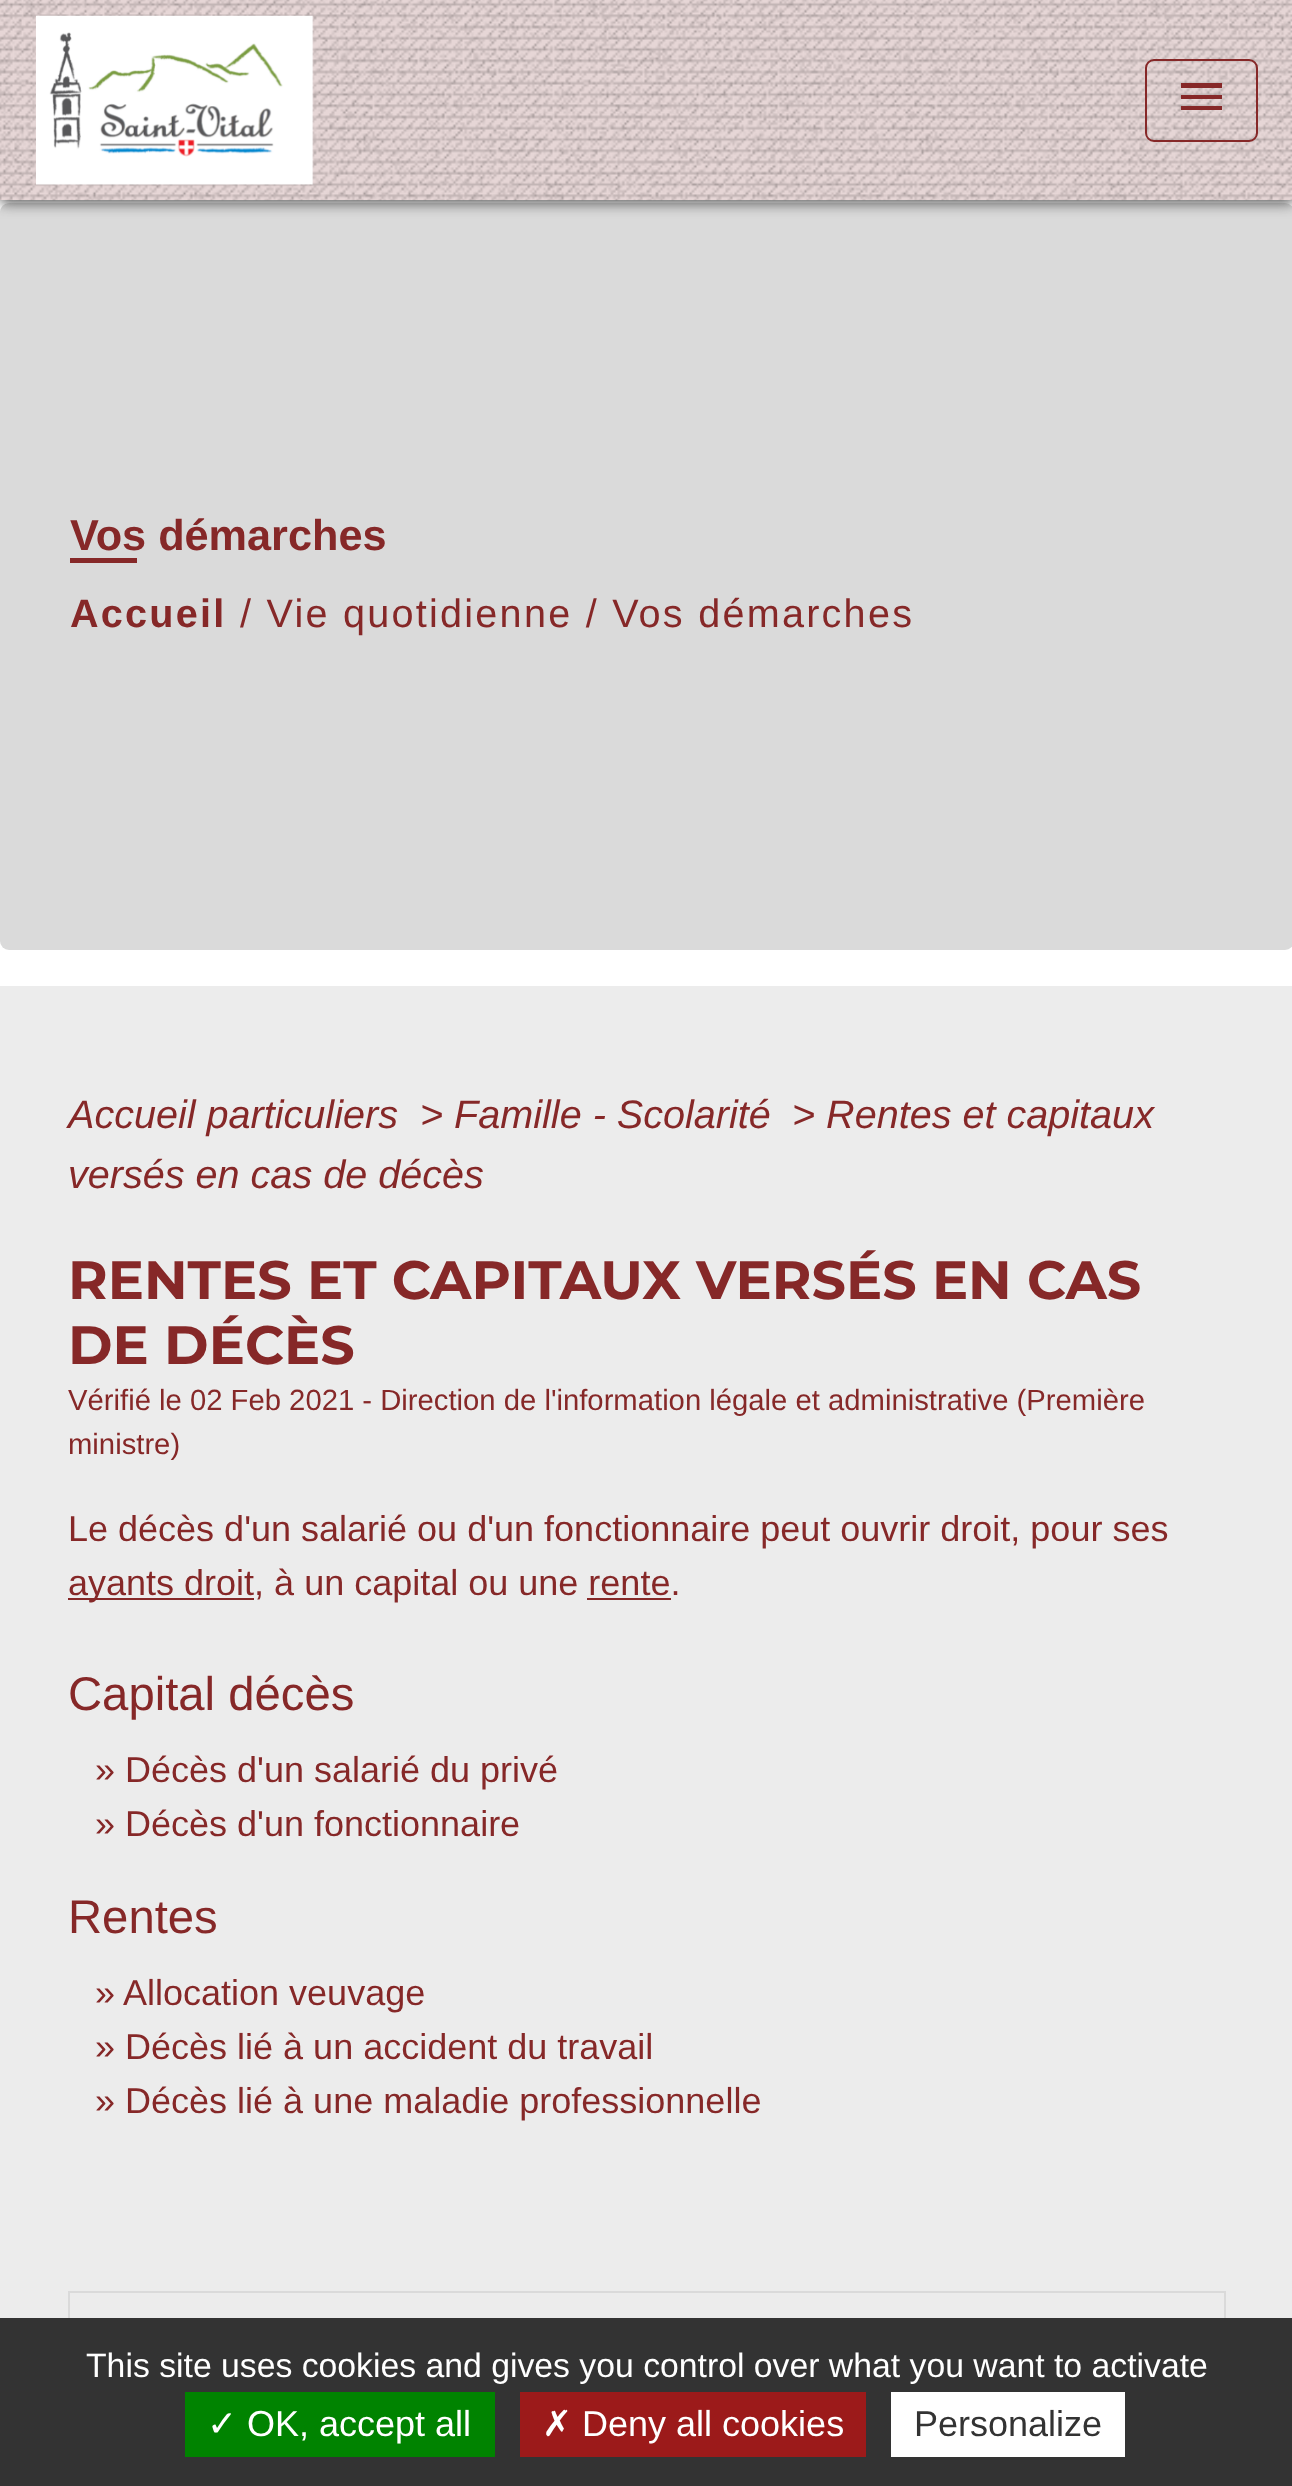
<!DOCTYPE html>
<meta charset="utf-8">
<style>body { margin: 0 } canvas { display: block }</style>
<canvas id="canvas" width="1292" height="2486"></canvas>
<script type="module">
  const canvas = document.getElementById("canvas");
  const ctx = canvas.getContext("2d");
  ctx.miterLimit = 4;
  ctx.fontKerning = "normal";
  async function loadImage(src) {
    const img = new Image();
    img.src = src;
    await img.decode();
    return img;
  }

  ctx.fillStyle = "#ffffff";
  ctx.fillRect(0, 0, 1292, 2486);
  ctx.fillStyle = "#dadada";
  ctx.beginPath();
  ctx.roundRect(0, 203, 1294, 747, 9);
  ctx.fill();
  ctx.fillStyle = "#535353";
  ctx.filter = "blur(7px)";
  ctx.beginPath();
  ctx.rect(0, 2, 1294, 201);
  ctx.fill();
  ctx.filter = "none";
  ctx.fillStyle = "#e6d6d6";
  ctx.fillRect(0, 0, 1292, 200);
  ctx.drawImage(await loadImage("img1.png"), 0, 0, 1292, 201);
  ctx.drawImage(await loadImage("img2.png"), 36, 15, 278, 170);
  ctx.beginPath();
  ctx.roundRect(1146, 60, 111, 81, 8);
  ctx.strokeStyle = "#862828";
  ctx.lineWidth = 2;
  ctx.stroke();
  ctx.fillStyle = "#862828";
  ctx.beginPath();
  ctx.moveTo(1181, 83);
  ctx.lineTo(1222, 83);
  ctx.lineTo(1222, 88);
  ctx.lineTo(1181, 88);
  ctx.closePath();
  ctx.moveTo(1181, 99);
  ctx.lineTo(1181, 95);
  ctx.lineTo(1222, 95);
  ctx.lineTo(1222, 99);
  ctx.closePath();
  ctx.moveTo(1181, 110);
  ctx.lineTo(1181, 106);
  ctx.lineTo(1222, 106);
  ctx.lineTo(1222, 110);
  ctx.closePath();
  ctx.fill();
  ctx.font = "bold 43.25px Liberation Sans";
  ctx.fillText("Vos démarches", 70, 550);
  ctx.fillRect(70, 558, 67, 5);
  ctx.letterSpacing = "2.25px";
  ctx.font = "bold 39.6px Liberation Sans";
  ctx.fillText("Accueil", 70, 627);
  ctx.font = "39.6px Liberation Sans";
  ctx.fillText("/ Vie quotidienne / Vos démarches", 240, 627);
  ctx.fillStyle = "#ececec";
  ctx.fillRect(0, 986, 1292, 1332);
  ctx.letterSpacing = "0px";
  ctx.font = "italic 39.6px Liberation Sans";
  ctx.fillStyle = "#862828";
  ctx.fillText("Accueil particuliers", 68, 1128);
  ctx.fillText("> Famille - Scolarité", 420, 1128);
  ctx.fillText("> Rentes et capitaux", 792, 1128);
  ctx.fillText("versés en cas de décès", 68, 1188);
  ctx.font = "bold 54px Montserrat";
  ctx.fillText("RENTES ET CAPITAUX VERSÉS EN CAS", 68, 1299);
  ctx.fillText("DE DÉCÈS", 68, 1364);
  ctx.font = "29.25px Liberation Sans";
  ctx.fillText("Vérifié le 02 Feb 2021 - Direction de l'information légale et administrative (Première", 68, 1410);
  ctx.fillText("ministre)", 68, 1454);
  ctx.font = "36px Liberation Sans";
  ctx.fillText("Le décès d'un salarié ou d'un fonctionnaire peut ouvrir droit, pour ses", 68, 1541);
  ctx.fillRect(68, 1598, 186, 2);
  ctx.fillText("ayants droit, à un capital ou une rente.", 68, 1595);
  ctx.fillRect(587, 1598, 84, 2);
  ctx.font = "47.25px Liberation Sans";
  ctx.fillText("Capital décès", 68, 1710);
  ctx.font = "36px Liberation Sans";
  ctx.fillText("» Décès d'un salarié du privé", 95, 1782);
  ctx.fillText("» Décès d'un fonctionnaire", 95, 1836);
  ctx.font = "47.25px Liberation Sans";
  ctx.fillText("Rentes", 68, 1933);
  ctx.font = "36px Liberation Sans";
  ctx.fillText("»", 95, 2005);
  ctx.fillText("Allocation veuvage", 123, 2005);
  ctx.fillText("» Décès lié à un accident du travail", 95, 2059);
  ctx.fillText("» Décès lié à une maladie professionnelle", 95, 2113);
  ctx.strokeStyle = "#dadada";
  ctx.strokeRect(69, 2292, 1156, 110);
  ctx.fillStyle = "#333333";
  ctx.fillRect(0, 2318, 1292, 168);
  ctx.font = "33.75px Liberation Sans";
  ctx.fillStyle = "#ffffff";
  ctx.fillText("This site uses cookies and gives you control over what you want to activate", 86, 2377);
  ctx.fillStyle = "#008300";
  ctx.fillRect(185, 2392, 310, 65);
  ctx.font = "36px DejaVu Sans";
  ctx.fillStyle = "#ffffff";
  ctx.fillText("✓", 207, 2436);
  ctx.font = "36px Liberation Sans";
  ctx.fillText("OK, accept all", 247, 2436);
  ctx.fillStyle = "#9c1a1a";
  ctx.fillRect(520, 2392, 346, 65);
  ctx.font = "36px DejaVu Sans";
  ctx.fillStyle = "#ffffff";
  ctx.fillText("✗", 542, 2436);
  ctx.font = "36px Liberation Sans";
  ctx.fillText("Deny all cookies", 582, 2436);
  ctx.fillRect(891, 2392, 234, 65);
  ctx.fillStyle = "#333333";
  ctx.fillText("Personalize", 914, 2436);
</script>
